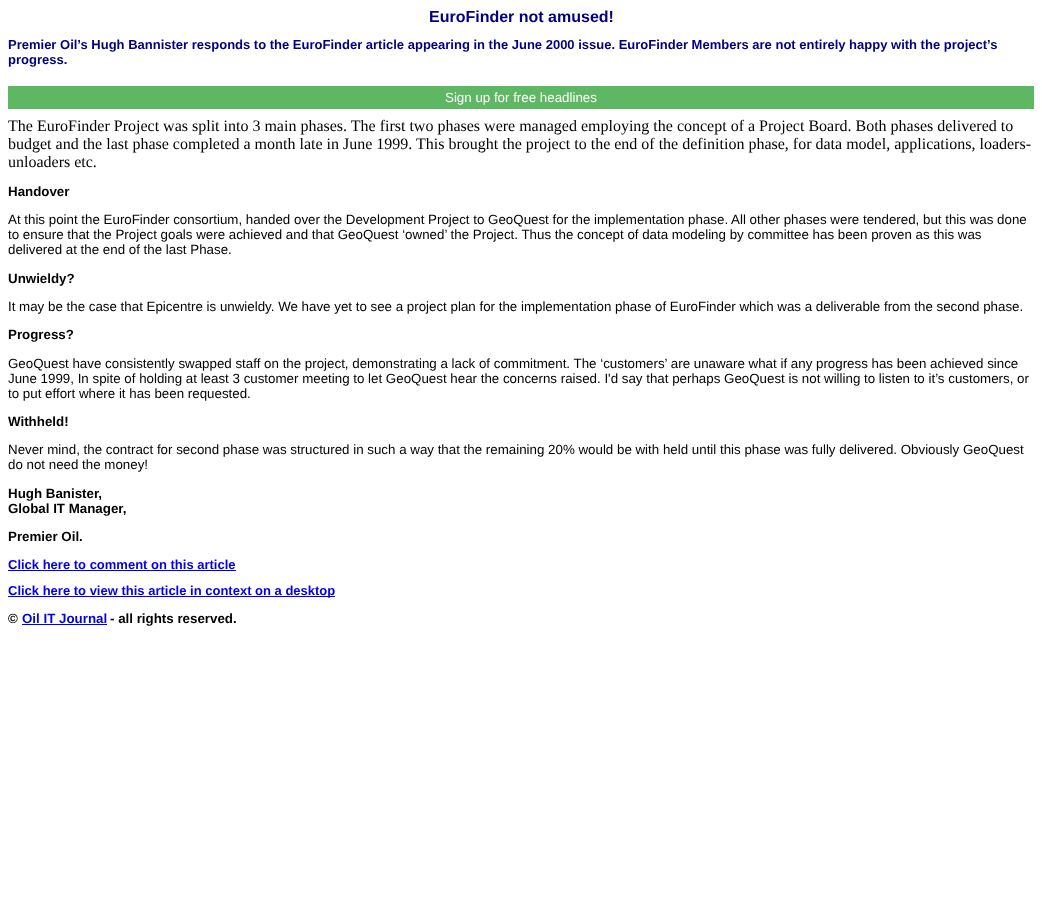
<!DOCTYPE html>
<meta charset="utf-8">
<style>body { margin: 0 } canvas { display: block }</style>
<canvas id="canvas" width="1042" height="901"></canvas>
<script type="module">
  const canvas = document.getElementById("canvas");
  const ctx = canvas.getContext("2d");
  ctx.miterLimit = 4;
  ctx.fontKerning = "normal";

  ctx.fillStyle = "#ffffff";
  ctx.fillRect(0, 0, 1042, 901);
  ctx.font = "bold 16px Liberation Sans";
  ctx.fillStyle = "#000080";
  ctx.fillText("EuroFinder not amused!", 429, 22);
  ctx.font = "bold 13px Liberation Sans";
  ctx.fillText("Premier Oil’s Hugh Bannister responds to the EuroFinder article appearing in the June 2000 issue. EuroFinder Members are not entirely happy with the project’s", 8, 49);
  ctx.fillText("progress.", 8, 64);
  ctx.fillStyle = "#5eb762";
  ctx.fillRect(8, 86, 1026, 23);
  ctx.font = "13.33px Liberation Sans";
  ctx.fillStyle = "#ffffff";
  ctx.fillText("Sign up for free headlines", 445, 102);
  ctx.font = "16px Liberation Serif";
  ctx.fillStyle = "#000000";
  ctx.fillText("The EuroFinder Project was split into 3 main phases. The first two phases were managed employing the concept of a Project Board. Both phases delivered to", 8, 131);
  ctx.fillText("budget and the last phase completed a month late in June 1999. This brought the project to the end of the definition phase, for data model, applications, loaders-", 8, 149);
  ctx.fillText("unloaders etc.", 8, 167);
  ctx.font = "bold 13.33px Liberation Sans";
  ctx.fillText("Handover", 8, 196);
  ctx.font = "13.33px Liberation Sans";
  ctx.fillText("At this point the EuroFinder consortium, handed over the Development Project to GeoQuest for the implementation phase. All other phases were tendered, but this was done", 8, 224);
  ctx.fillText("to ensure that the Project goals were achieved and that GeoQuest ‘owned’ the Project. Thus the concept of data modeling by committee has been proven as this was", 8, 239);
  ctx.fillText("delivered at the end of the last Phase.", 8, 254);
  ctx.font = "bold 13.33px Liberation Sans";
  ctx.fillText("Unwieldy?", 8, 283);
  ctx.font = "13.33px Liberation Sans";
  ctx.fillText("It may be the case that Epicentre is unwieldy. We have yet to see a project plan for the implementation phase of EuroFinder which was a deliverable from the second phase.", 8, 311);
  ctx.font = "bold 13.33px Liberation Sans";
  ctx.fillText("Progress?", 8, 339);
  ctx.font = "13.33px Liberation Sans";
  ctx.fillText("GeoQuest have consistently swapped staff on the project, demonstrating a lack of commitment. The ‘customers’ are unaware what if any progress has been achieved since", 8, 368);
  ctx.fillText("June 1999, In spite of holding at least 3 customer meeting to let GeoQuest hear the concerns raised. I'd say that perhaps GeoQuest is not willing to listen to it’s customers, or", 8, 383);
  ctx.fillText("to put effort where it has been requested.", 8, 398);
  ctx.font = "bold 13.33px Liberation Sans";
  ctx.fillText("Withheld!", 8, 426);
  ctx.font = "13.33px Liberation Sans";
  ctx.fillText("Never mind, the contract for second phase was structured in such a way that the remaining 20% would be with held until this phase was fully delivered. Obviously GeoQuest", 8, 454);
  ctx.fillText("do not need the money!", 8, 469);
  ctx.font = "bold 13.33px Liberation Sans";
  ctx.fillText("Hugh Banister,", 8, 498);
  ctx.fillText("Global IT Manager,", 8, 513);
  ctx.fillText("Premier Oil.", 8, 541);
  ctx.font = "bold 13px Liberation Sans";
  ctx.fillStyle = "#0000ee";
  ctx.fillText("Click here to comment on this article", 8, 569);
  ctx.fillRect(8, 570, 228, 1);
  ctx.fillRect(8, 596, 327, 1);
  ctx.fillText("Click here to view this article in context on a desktop", 8, 595);
  ctx.font = "bold 13.33px Liberation Sans";
  ctx.fillStyle = "#000000";
  ctx.fillText("©", 8, 623);
  ctx.fillStyle = "#0000ee";
  ctx.fillText("Oil IT Journal", 22, 623);
  ctx.fillRect(22, 624, 85, 1);
  ctx.fillStyle = "#000000";
  ctx.fillText("- all rights reserved.", 110, 623);
</script>
